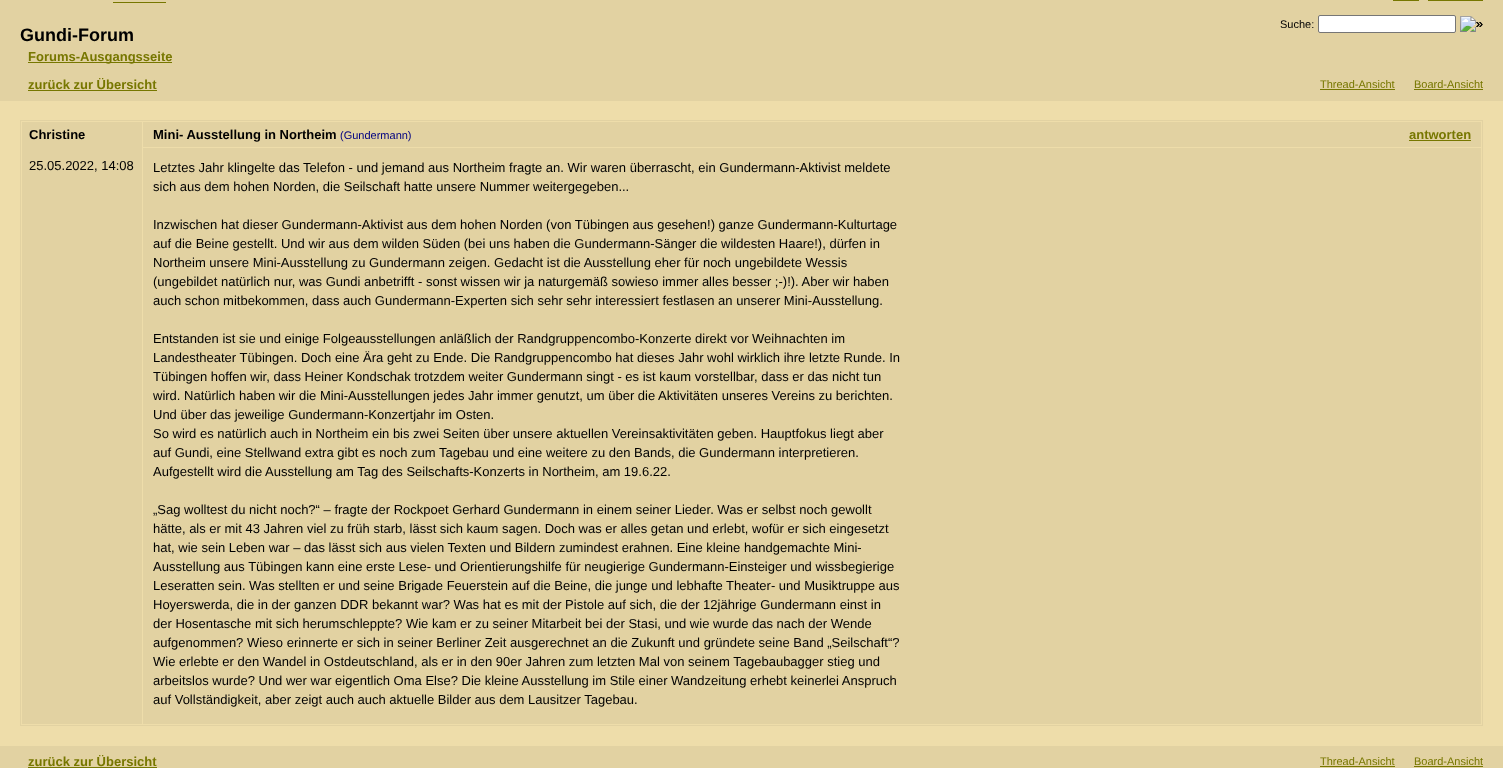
<!DOCTYPE html>
<meta charset="utf-8">
<style>body { margin: 0 } canvas { display: block }</style>
<canvas id="canvas" width="1503" height="768"></canvas>
<script type="module">
  const canvas = document.getElementById("canvas");
  const ctx = canvas.getContext("2d");
  ctx.miterLimit = 4;
  ctx.fontKerning = "normal";
  async function loadImage(src) {
    const img = new Image();
    img.src = src;
    await img.decode();
    return img;
  }

  ctx.fillStyle = "#e2d2a2";
  ctx.fillRect(0, 0, 1503, 768);
  ctx.fillStyle = "#777700";
  ctx.fillRect(1393, 0, 26, 1);
  ctx.fillRect(1428, 0, 55, 1);
  ctx.font = "11px Liberation Sans";
  ctx.fillStyle = "#000000";
  ctx.fillText("Suche:", 1280, 28);
  ctx.fillStyle = "#ffffff";
  ctx.beginPath();
  ctx.roundRect(1318.5, 15.5, 137, 17, 1.5);
  ctx.fill();
  ctx.strokeStyle = "#767676";
  ctx.stroke();
  ctx.drawImage(await loadImage("img1.png"), 1460, 16, 23, 16);
  ctx.font = "13px Liberation Sans";
  ctx.fillStyle = "#000000";
  ctx.fillText("»", 1476, 28);
  ctx.fillStyle = "#777700";
  ctx.fillRect(113, 2, 53, 1);
  ctx.font = "bold 18px Liberation Sans";
  ctx.fillStyle = "#000000";
  ctx.fillText("Gundi-Forum", 20, 41);
  ctx.fillStyle = "#777700";
  ctx.fillRect(28, 62, 144, 1);
  ctx.font = "bold 13px Liberation Sans";
  ctx.fillText("Forums-Ausgangsseite", 28, 61);
  ctx.fillText("zurück zur Übersicht", 28, 89);
  ctx.fillRect(28, 90, 129, 1);
  ctx.font = "11px Liberation Sans";
  ctx.fillText("Thread-Ansicht", 1320, 88);
  ctx.fillRect(1320, 89, 75, 1);
  ctx.fillText("Board-Ansicht", 1414, 88);
  ctx.fillRect(1414, 89, 69, 1);
  ctx.fillStyle = "#eeddaa";
  ctx.fillRect(0, 101, 1503, 645);
  ctx.strokeStyle = "#e2d2a2";
  ctx.strokeRect(20.5, 120.5, 1462, 605);
  ctx.fillStyle = "#e2d2a2";
  ctx.fillRect(22, 122, 120, 602);
  ctx.font = "bold 13px Liberation Sans";
  ctx.fillStyle = "#000000";
  ctx.fillText("Christine", 29, 139);
  ctx.font = "13px Liberation Sans";
  ctx.fillText("25.05.2022, 14:08", 29, 170);
  ctx.fillStyle = "#e2d2a2";
  ctx.fillRect(143, 122, 1338, 25);
  ctx.font = "bold 13px Liberation Sans";
  ctx.fillStyle = "#000000";
  ctx.fillText("Mini- Ausstellung in Northeim", 153, 139);
  ctx.font = "11px Liberation Sans";
  ctx.fillStyle = "#000080";
  ctx.fillText("(Gundermann)", 340, 139);
  ctx.font = "bold 13px Liberation Sans";
  ctx.fillStyle = "#777700";
  ctx.fillText("antworten", 1409, 139);
  ctx.fillRect(1409, 140, 62, 1);
  ctx.fillStyle = "#e2d2a2";
  ctx.fillRect(143, 148, 1338, 576);
  ctx.font = "13px Liberation Sans";
  ctx.fillStyle = "#000000";
  ctx.fillText("Letztes Jahr klingelte das Telefon - und jemand aus Northeim fragte an. Wir waren überrascht, ein Gundermann-Aktivist meldete", 153, 172);
  ctx.fillText("sich aus dem hohen Norden, die Seilschaft hatte unsere Nummer weitergegeben...", 153, 191);
  ctx.fillText("Inzwischen hat dieser Gundermann-Aktivist aus dem hohen Norden (von Tübingen aus gesehen!) ganze Gundermann-Kulturtage", 153, 229);
  ctx.fillText("auf die Beine gestellt. Und wir aus dem wilden Süden (bei uns haben die Gundermann-Sänger die wildesten Haare!), dürfen in", 153, 248);
  ctx.fillText("Northeim unsere Mini-Ausstellung zu Gundermann zeigen. Gedacht ist die Ausstellung eher für noch ungebildete Wessis", 153, 267);
  ctx.fillText("(ungebildet natürlich nur, was Gundi anbetrifft - sonst wissen wir ja naturgemäß sowieso immer alles besser ;-)!). Aber wir haben", 153, 286);
  ctx.fillText("auch schon mitbekommen, dass auch Gundermann-Experten sich sehr sehr interessiert festlasen an unserer Mini-Ausstellung.", 153, 305);
  ctx.fillText("Entstanden ist sie und einige Folgeausstellungen anläßlich der Randgruppencombo-Konzerte direkt vor Weihnachten im", 153, 343);
  ctx.fillText("Landestheater Tübingen. Doch eine Ära geht zu Ende. Die Randgruppencombo hat dieses Jahr wohl wirklich ihre letzte Runde. In", 153, 362);
  ctx.fillText("Tübingen hoffen wir, dass Heiner Kondschak trotzdem weiter Gundermann singt - es ist kaum vorstellbar, dass er das nicht tun", 153, 381);
  ctx.fillText("wird. Natürlich haben wir die Mini-Ausstellungen jedes Jahr immer genutzt, um über die Aktivitäten unseres Vereins zu berichten.", 153, 400);
  ctx.fillText("Und über das jeweilige Gundermann-Konzertjahr im Osten.", 153, 419);
  ctx.fillText("So wird es natürlich auch in Northeim ein bis zwei Seiten über unsere aktuellen Vereinsaktivitäten geben. Hauptfokus liegt aber", 153, 438);
  ctx.fillText("auf Gundi, eine Stellwand extra gibt es noch zum Tagebau und eine weitere zu den Bands, die Gundermann interpretieren.", 153, 457);
  ctx.fillText("Aufgestellt wird die Ausstellung am Tag des Seilschafts-Konzerts in Northeim, am 19.6.22.", 153, 476);
  ctx.fillText("„Sag wolltest du nicht noch?“ – fragte der Rockpoet Gerhard Gundermann in einem seiner Lieder. Was er selbst noch gewollt", 153, 514);
  ctx.fillText("hätte, als er mit 43 Jahren viel zu früh starb, lässt sich kaum sagen. Doch was er alles getan und erlebt, wofür er sich eingesetzt", 153, 533);
  ctx.fillText("hat, wie sein Leben war – das lässt sich aus vielen Texten und Bildern zumindest erahnen. Eine kleine handgemachte Mini-", 153, 552);
  ctx.fillText("Ausstellung aus Tübingen kann eine erste Lese- und Orientierungshilfe für neugierige Gundermann-Einsteiger und wissbegierige", 153, 571);
  ctx.fillText("Leseratten sein. Was stellten er und seine Brigade Feuerstein auf die Beine, die junge und lebhafte Theater- und Musiktruppe aus", 153, 590);
  ctx.fillText("Hoyerswerda, die in der ganzen DDR bekannt war? Was hat es mit der Pistole auf sich, die der 12jährige Gundermann einst in", 153, 609);
  ctx.fillText("der Hosentasche mit sich herumschleppte? Wie kam er zu seiner Mitarbeit bei der Stasi, und wie wurde das nach der Wende", 153, 628);
  ctx.fillText("aufgenommen? Wieso erinnerte er sich in seiner Berliner Zeit ausgerechnet an die Zukunft und gründete seine Band „Seilschaft“?", 153, 647);
  ctx.fillText("Wie erlebte er den Wandel in Ostdeutschland, als er in den 90er Jahren zum letzten Mal von seinem Tagebaubagger stieg und", 153, 666);
  ctx.fillText("arbeitslos wurde? Und wer war eigentlich Oma Else? Die kleine Ausstellung im Stile einer Wandzeitung erhebt keinerlei Anspruch", 153, 685);
  ctx.fillText("auf Vollständigkeit, aber zeigt auch auch aktuelle Bilder aus dem Lausitzer Tagebau.", 153, 704);
  ctx.font = "bold 13px Liberation Sans";
  ctx.fillStyle = "#777700";
  ctx.fillText("zurück zur Übersicht", 28, 766);
  ctx.fillRect(28, 767, 129, 1);
  ctx.font = "11px Liberation Sans";
  ctx.fillText("Thread-Ansicht", 1320, 765);
  ctx.fillRect(1320, 766, 75, 1);
  ctx.fillText("Board-Ansicht", 1414, 765);
  ctx.fillRect(1414, 766, 69, 1);
</script>
